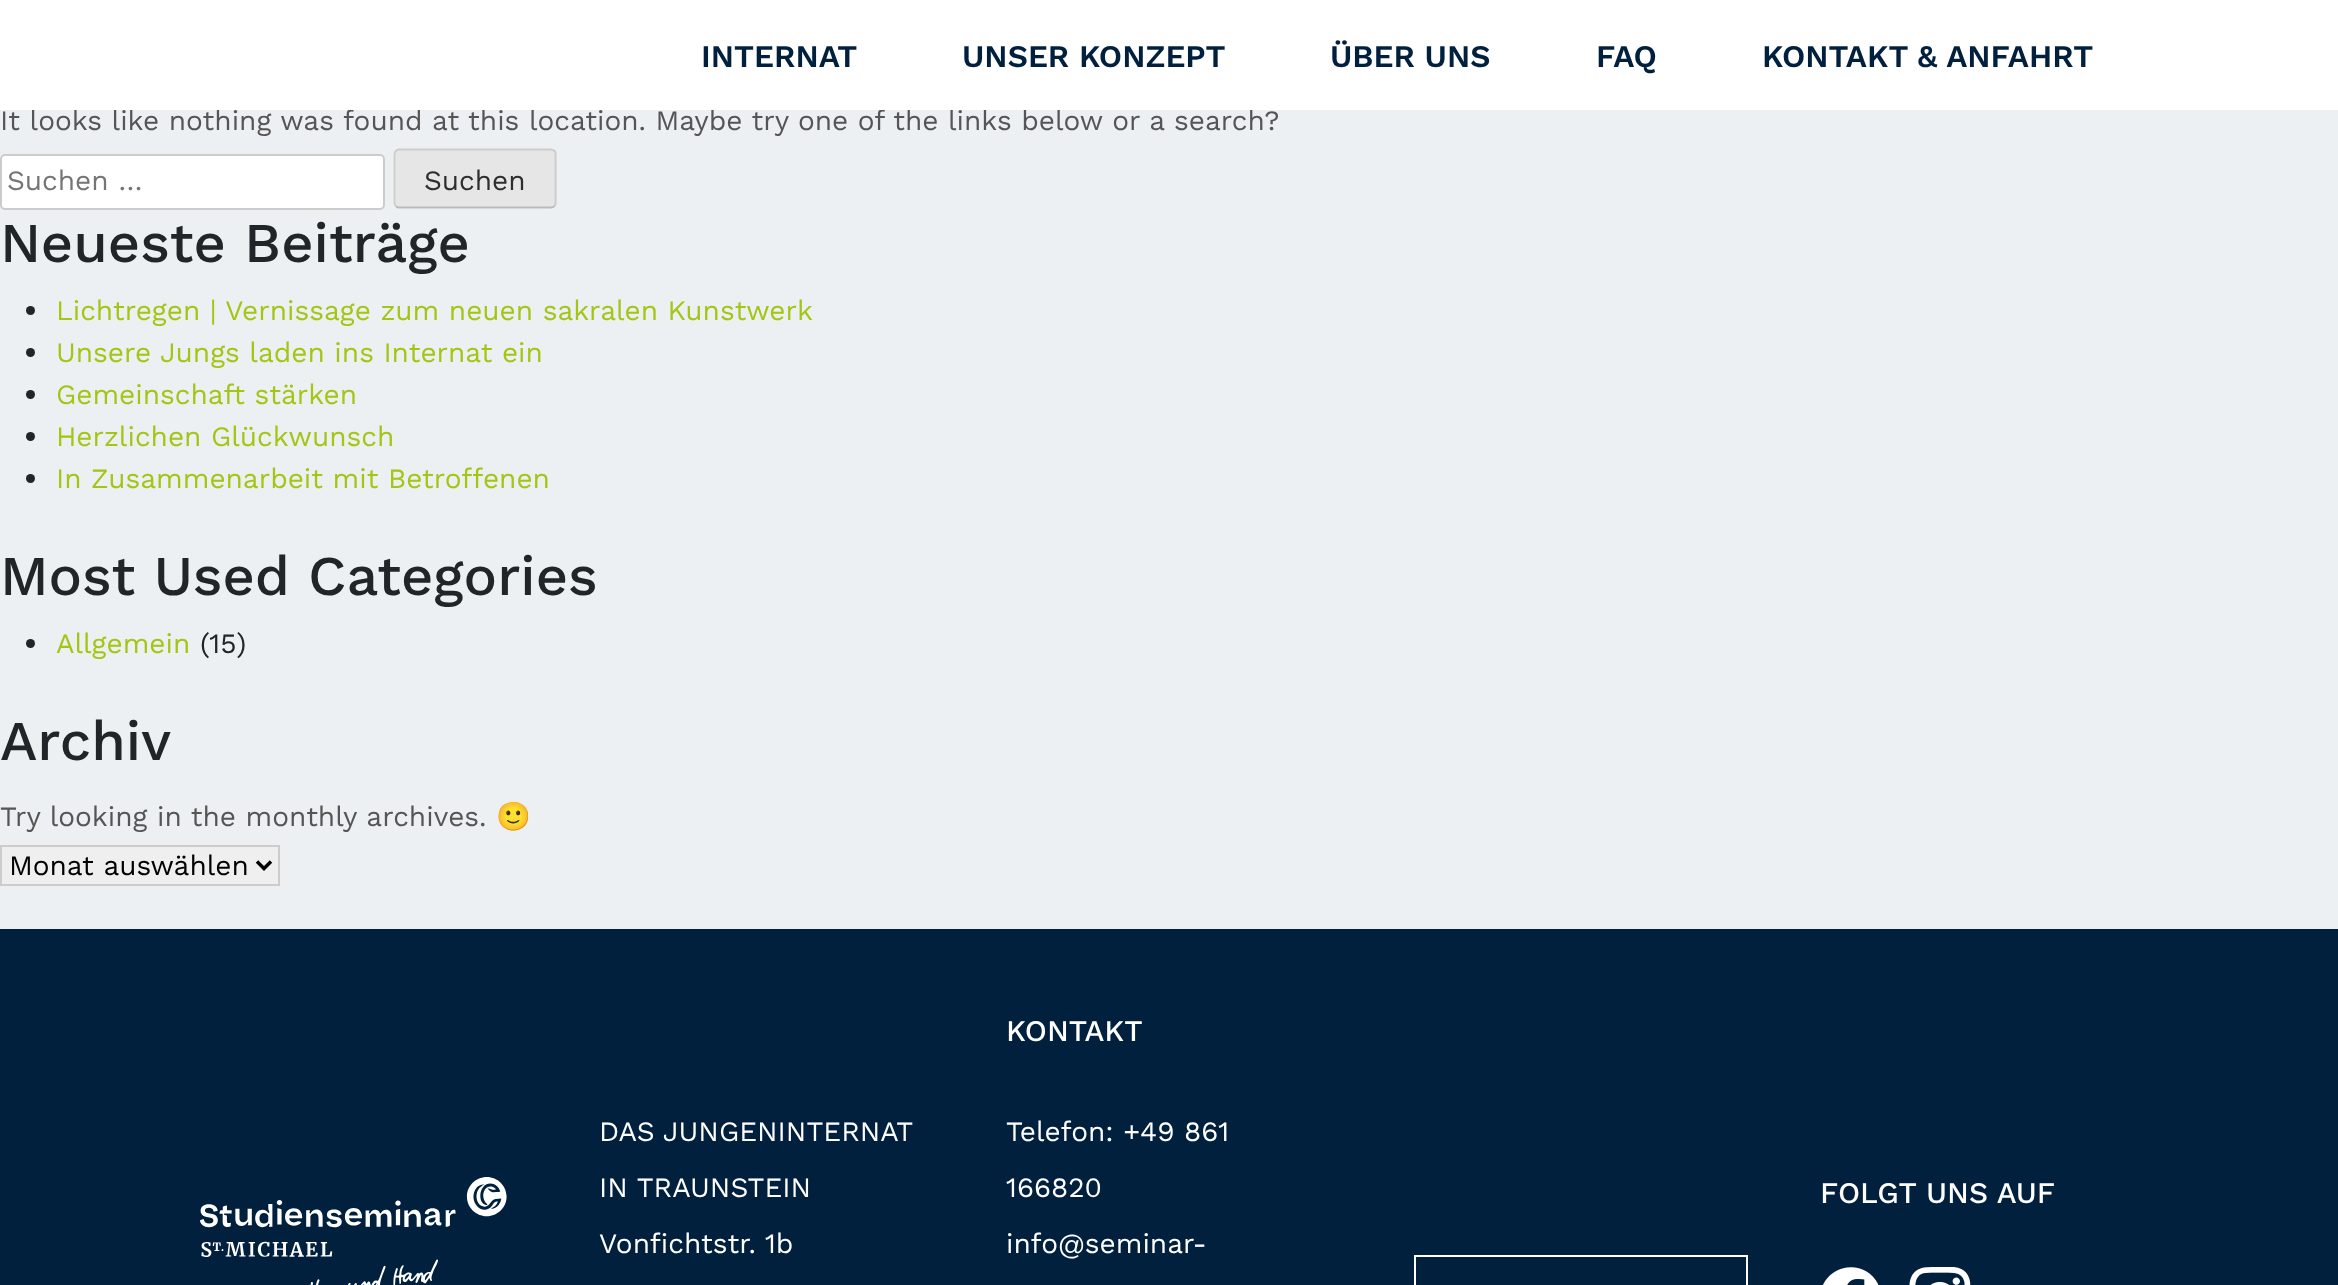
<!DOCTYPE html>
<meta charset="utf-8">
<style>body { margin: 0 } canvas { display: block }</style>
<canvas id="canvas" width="2338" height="1285"></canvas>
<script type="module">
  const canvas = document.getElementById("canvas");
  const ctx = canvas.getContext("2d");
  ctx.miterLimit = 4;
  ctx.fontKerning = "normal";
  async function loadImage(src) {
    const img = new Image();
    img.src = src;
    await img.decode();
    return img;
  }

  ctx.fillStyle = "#edf0f2";
  ctx.fillRect(0, 0, 2338, 1285);
  ctx.font = "28px Work Sans";
  ctx.fillStyle = "#555555";
  ctx.fillText("It looks like nothing was found at this location. Maybe try one of the links below or a search?", 0, 130);
  ctx.fillStyle = "#ffffff";
  ctx.fillRect(0, 0, 2338, 110);
  ctx.font = "600 31.5px Work Sans";
  ctx.fillStyle = "#00203e";
  ctx.fillText("INTERNAT", 701, 67);
  ctx.fillText("UNSER KONZEPT", 962, 67);
  ctx.fillText("ÜBER UNS", 1330, 67);
  ctx.fillText("FAQ", 1596, 67);
  ctx.fillText("KONTAKT & ANFAHRT", 1762, 67);
  ctx.fillStyle = "#ffffff";
  ctx.beginPath();
  ctx.roundRect(1, 155, 383, 54, 4);
  ctx.fill();
  ctx.strokeStyle = "#cccccc";
  ctx.lineWidth = 2;
  ctx.stroke();
  ctx.font = "28px Work Sans";
  ctx.fillStyle = "#757575";
  ctx.fillText("Suchen …", 7, 190);
  ctx.fillStyle = "#e6e6e6";
  ctx.beginPath();
  ctx.roundRect(394, 149, 163, 59, 5);
  ctx.fill();
  ctx.beginPath();
  ctx.moveTo(554.5, 206);
  ctx.bezierCurveTo(553.5, 207, 552.5, 207.5, 551, 207.5);
  ctx.lineTo(399, 207.5);
  ctx.bezierCurveTo(398, 207.5, 396.5, 207, 396, 206);
  ctx.strokeStyle = "#bbbbbb";
  ctx.lineWidth = 1.8;
  ctx.stroke();
  ctx.beginPath();
  ctx.moveTo(396, 206);
  ctx.bezierCurveTo(395, 205.5, 394.5, 204, 394.5, 203);
  ctx.lineTo(394.5, 154);
  ctx.bezierCurveTo(394.5, 153, 395, 151.5, 396, 151);
  ctx.bezierCurveTo(396.5, 150, 398, 149.5, 399, 149.5);
  ctx.lineTo(551, 149.5);
  ctx.bezierCurveTo(552.5, 149.5, 553.5, 150, 554.5, 151);
  ctx.bezierCurveTo(555, 151.5, 555.5, 153, 555.5, 154);
  ctx.lineTo(555.5, 203);
  ctx.bezierCurveTo(555.5, 204, 555, 205.5, 554.5, 206);
  ctx.strokeStyle = "#cccccc";
  ctx.stroke();
  ctx.fillStyle = "#2e2e2e";
  ctx.fillText("Suchen", 424, 190);
  ctx.font = "500 56px Work Sans";
  ctx.fillStyle = "#212529";
  ctx.fillText("Neueste Beiträge", 0, 262);
  ctx.beginPath();
  ctx.arc(30.5, 310.5, 4.5, 0, Math.PI * 2);
  ctx.fill();
  ctx.font = "28px Work Sans";
  ctx.fillStyle = "#a2c613";
  ctx.fillText("Lichtregen | Vernissage zum neuen sakralen Kunstwerk", 56, 320);
  ctx.fillStyle = "#212529";
  ctx.beginPath();
  ctx.arc(30.5, 352.5, 4.5, 0, Math.PI * 2);
  ctx.fill();
  ctx.fillStyle = "#a2c613";
  ctx.fillText("Unsere Jungs laden ins Internat ein", 56, 362);
  ctx.fillStyle = "#212529";
  ctx.beginPath();
  ctx.arc(30.5, 394.5, 4.5, 0, Math.PI * 2);
  ctx.fill();
  ctx.fillStyle = "#a2c613";
  ctx.fillText("Gemeinschaft stärken", 56, 404);
  ctx.fillStyle = "#212529";
  ctx.beginPath();
  ctx.arc(30.5, 436.5, 4.5, 0, Math.PI * 2);
  ctx.fill();
  ctx.fillStyle = "#a2c613";
  ctx.fillText("Herzlichen Glückwunsch", 56, 446);
  ctx.fillStyle = "#212529";
  ctx.beginPath();
  ctx.arc(30.5, 478.5, 4.5, 0, Math.PI * 2);
  ctx.fill();
  ctx.fillStyle = "#a2c613";
  ctx.fillText("In Zusammenarbeit mit Betroffenen", 56, 488);
  ctx.font = "500 56px Work Sans";
  ctx.fillStyle = "#212529";
  ctx.fillText("Most Used Categories", 0, 595);
  ctx.beginPath();
  ctx.arc(30.5, 643.5, 4.5, 0, Math.PI * 2);
  ctx.fill();
  ctx.font = "28px Work Sans";
  ctx.fillStyle = "#a2c613";
  ctx.fillText("Allgemein", 56, 653);
  ctx.fillStyle = "#212529";
  ctx.fillText("(15)", 200, 653);
  ctx.font = "500 56px Work Sans";
  ctx.fillText("Archiv", 0, 760);
  ctx.font = "28px Work Sans";
  ctx.fillStyle = "#555555";
  ctx.fillText("Try looking in the monthly archives.", 0, 826);
  ctx.font = "28px Noto Color Emoji";
  ctx.fillText("🙂", 496, 826);
  ctx.fillStyle = "#efefef";
  ctx.beginPath();
  ctx.rect(1, 846, 278, 39);
  ctx.fill();
  ctx.lineWidth = 2;
  ctx.stroke();
  ctx.beginPath();
  ctx.moveTo(257, 861.5);
  ctx.lineTo(264, 868.5);
  ctx.lineTo(271, 861.5);
  ctx.strokeStyle = "#000000";
  ctx.lineWidth = 3.5;
  ctx.stroke();
  ctx.font = "28px Work Sans";
  ctx.fillStyle = "#000000";
  ctx.fillText("Monat auswählen", 9, 875);
  ctx.fillStyle = "#00203e";
  ctx.fillRect(0, 929, 2338, 356);
  ctx.drawImage(await loadImage("img1.png"), 200, 1177, 307, 108);
  ctx.wordSpacing = "-1px";
  ctx.fillStyle = "#ffffff";
  ctx.fillText("DAS JUNGENINTERNAT", 599, 1141);
  ctx.wordSpacing = "0px";
  ctx.fillText("IN TRAUNSTEIN", 599, 1197);
  ctx.fillText("Vonfichtstr. 1b", 599, 1253);
  ctx.font = "500 29.75px Work Sans";
  ctx.fillText("KONTAKT", 1006, 1041);
  ctx.font = "28px Work Sans";
  ctx.fillText("Telefon: +49 861", 1006, 1141);
  ctx.fillText("166820", 1006, 1197);
  ctx.fillText("info@seminar-", 1006, 1253);
  ctx.font = "500 29.75px Work Sans";
  ctx.fillText("FOLGT UNS AUF", 1820, 1203);
  ctx.drawImage(await loadImage("img2.png"), 1823, 1267, 56, 18);
  ctx.drawImage(await loadImage("img3.png"), 1909, 1267, 62, 18);
  ctx.strokeStyle = "#ffffff";
  ctx.lineWidth = 2;
  ctx.strokeRect(1415, 1256, 332, 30);
</script>
